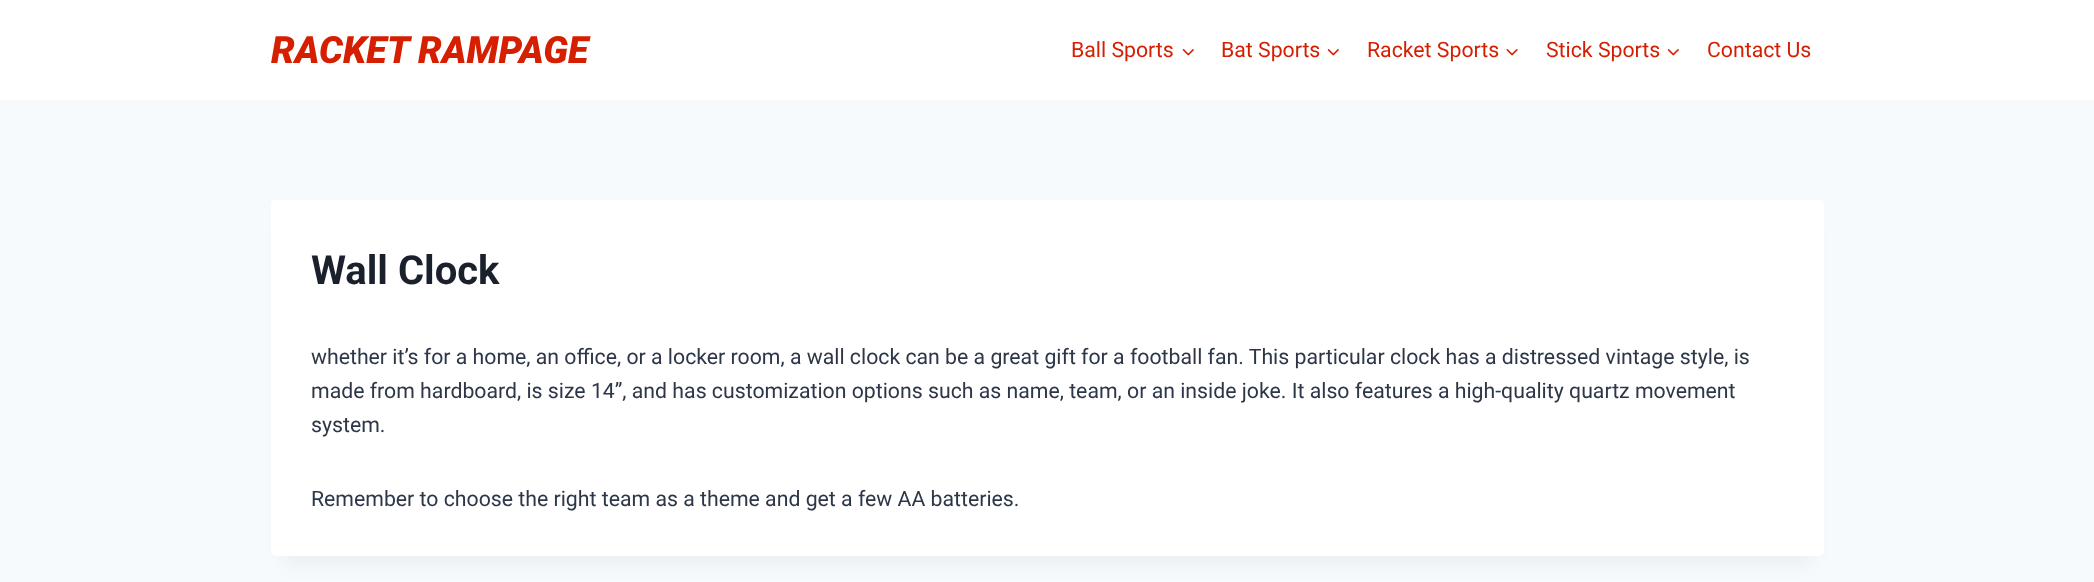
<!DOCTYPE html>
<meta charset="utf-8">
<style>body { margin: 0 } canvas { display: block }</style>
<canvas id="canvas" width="2094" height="582"></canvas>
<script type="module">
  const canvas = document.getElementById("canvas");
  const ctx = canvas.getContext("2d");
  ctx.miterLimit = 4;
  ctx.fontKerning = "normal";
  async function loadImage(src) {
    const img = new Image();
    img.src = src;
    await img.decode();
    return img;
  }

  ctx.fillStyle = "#f7fafc";
  ctx.fillRect(0, 0, 2094, 582);
  ctx.fillStyle = "#ffffff";
  ctx.fillRect(0, 0, 2094, 100);
  ctx.font = "italic 900 37.5px Roboto";
  ctx.fillStyle = "#d61e00";
  ctx.fillText("RACKET RAMPAGE", 271, 63);
  ctx.font = "21.25px Roboto";
  ctx.fillText("Ball Sports", 1071, 57);
  ctx.drawImage(await loadImage("img1.png"), 1182, 49, 12, 7);
  ctx.fillText("Bat Sports", 1221, 57);
  ctx.drawImage(await loadImage("img1.png"), 1327, 49, 12, 7);
  ctx.fillText("Racket Sports", 1367, 57);
  ctx.drawImage(await loadImage("img2.png"), 1506, 49, 12, 7);
  ctx.fillText("Stick Sports", 1546, 57);
  ctx.drawImage(await loadImage("img1.png"), 1667, 49, 12, 7);
  ctx.fillText("Contact Us", 1707, 57);
  ctx.fillStyle = "rgba(0, 0, 0, 0.05)";
  ctx.filter = "blur(9.5px)";
  ctx.beginPath();
  ctx.rect(284, 231, 1527, 332);
  ctx.fill();
  ctx.filter = "none";
  ctx.fillStyle = "#ffffff";
  ctx.beginPath();
  ctx.roundRect(271, 200, 1553, 356, 5);
  ctx.fill();
  ctx.font = "bold 40px Roboto";
  ctx.fillStyle = "#1a202c";
  ctx.fillText("Wall Clock", 311, 284);
  ctx.font = "21.25px Roboto";
  ctx.fillStyle = "#2d3748";
  ctx.fillText("whether it’s for a home, an office, or a locker room, a wall clock can be a great gift for a football fan. This particular clock has a distressed vintage style, is", 311, 364);
  ctx.fillText("made from hardboard, is size 14”, and has customization options such as name, team, or an inside joke. It also features a high-quality quartz movement", 311, 398);
  ctx.fillText("system.", 311, 432);
  ctx.fillText("Remember to choose the right team as a theme and get a few AA batteries.", 311, 506);
</script>
